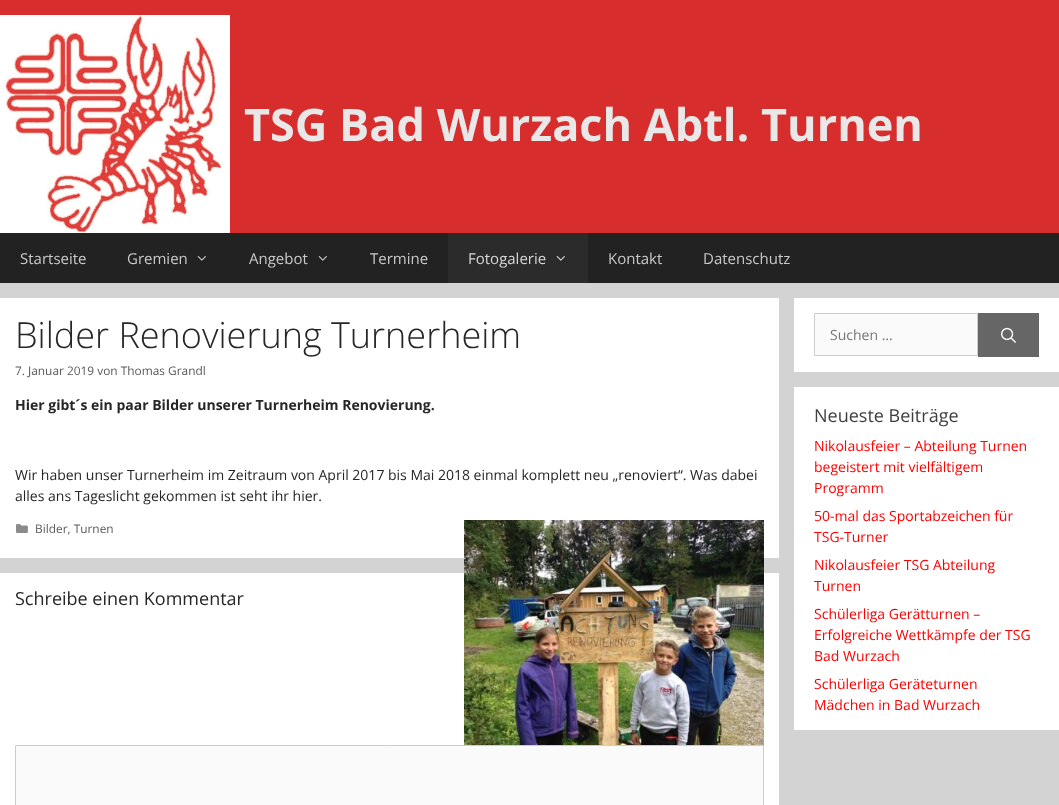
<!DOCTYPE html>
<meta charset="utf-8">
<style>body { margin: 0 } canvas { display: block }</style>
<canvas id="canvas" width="1059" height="805"></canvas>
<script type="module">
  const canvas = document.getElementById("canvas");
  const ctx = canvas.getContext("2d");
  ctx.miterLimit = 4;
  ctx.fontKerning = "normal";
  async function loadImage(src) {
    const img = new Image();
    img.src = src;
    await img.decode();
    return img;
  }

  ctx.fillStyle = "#d3d3d3";
  ctx.fillRect(0, 0, 1059, 805);
  ctx.fillStyle = "#d82d2d";
  ctx.fillRect(0, 0, 1059, 233);
  ctx.drawImage(await loadImage("img1.png"), 0, 15, 230, 218);
  ctx.font = "bold 45px Open Sans";
  ctx.fillStyle = "#e8e8e8";
  ctx.fillText("TSG Bad Wurzach Abtl. Turnen", 244, 141);
  ctx.fillStyle = "#222222";
  ctx.fillRect(0, 233, 1059, 50);
  ctx.font = "15px Open Sans";
  ctx.fillStyle = "#c9c9c9";
  ctx.fillText("Startseite", 20, 264);
  ctx.fillText("Gremien", 127, 264);
  ctx.drawImage(await loadImage("img2.png"), 197, 256, 9, 5);
  ctx.fillText("Angebot", 249, 264);
  ctx.drawImage(await loadImage("img2.png"), 318, 256, 9, 5);
  ctx.fillText("Termine", 370, 264);
  ctx.fillStyle = "#2b2b2b";
  ctx.fillRect(448, 233, 140, 50);
  ctx.fillStyle = "#d6d6d6";
  ctx.fillText("Fotogalerie", 468, 264);
  ctx.drawImage(await loadImage("img3.png"), 556, 256, 9, 5);
  ctx.fillStyle = "#c9c9c9";
  ctx.fillText("Kontakt", 608, 264);
  ctx.fillText("Datenschutz", 703, 264);
  ctx.fillStyle = "#ffffff";
  ctx.fillRect(0, 298, 779, 260);
  ctx.font = "300 36px Open Sans";
  ctx.fillStyle = "#262626";
  ctx.fillText("Bilder Renovierung Turnerheim", 15, 348);
  ctx.font = "11.9px Open Sans";
  ctx.fillStyle = "#595959";
  ctx.fillText("7. Januar 2019 von Thomas Grandl", 15, 375);
  ctx.font = "bold 14px Open Sans";
  ctx.fillStyle = "#262626";
  ctx.fillText("Hier gibt´s ein paar Bilder unserer Turnerheim Renovierung.", 15, 410);
  ctx.font = "14px Open Sans";
  ctx.fillText("Wir haben unser Turnerheim im Zeitraum von April 2017 bis Mai 2018 einmal komplett neu „renoviert“. Was dabei", 15, 480);
  ctx.fillText("alles ans Tageslicht gekommen ist seht ihr hier.", 15, 501);
  ctx.fillStyle = "#ffffff";
  ctx.fillRect(0, 573, 779, 232);
  ctx.drawImage(await loadImage("img4.png"), 464, 520, 300, 225);
  ctx.drawImage(await loadImage("img5.png"), 16, 524, 12, 9);
  ctx.font = "11.9px Open Sans";
  ctx.fillStyle = "#595959";
  ctx.fillText("Bilder, Turnen", 35, 533);
  ctx.font = "18px Open Sans";
  ctx.fillStyle = "#262626";
  ctx.fillText("Schreibe einen Kommentar", 15, 605);
  ctx.fillStyle = "#fafafa";
  ctx.beginPath();
  ctx.rect(15.5, 745.5, 748, 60);
  ctx.fill();
  ctx.strokeStyle = "#cccccc";
  ctx.stroke();
  ctx.fillStyle = "#ffffff";
  ctx.fillRect(794, 298, 265, 74);
  ctx.fillStyle = "#fafafa";
  ctx.beginPath();
  ctx.rect(814.5, 313.5, 163, 42);
  ctx.fill();
  ctx.stroke();
  ctx.font = "14px Open Sans";
  ctx.fillStyle = "#757575";
  ctx.fillText("Suchen …", 830, 340);
  ctx.fillStyle = "#666666";
  ctx.fillRect(978, 313, 61, 44);
  ctx.drawImage(await loadImage("img6.png"), 1001, 327, 15, 16);
  ctx.fillStyle = "#ffffff";
  ctx.fillRect(794, 387, 265, 343);
  ctx.font = "18px Open Sans";
  ctx.fillStyle = "#3f3f3f";
  ctx.fillText("Neueste Beiträge", 814, 422);
  ctx.font = "14px Open Sans";
  ctx.fillStyle = "#ff0000";
  ctx.fillText("Nikolausfeier – Abteilung Turnen", 814, 451);
  ctx.fillText("begeistert mit vielfältigem", 814, 472);
  ctx.fillText("Programm", 814, 493);
  ctx.fillText("50-mal das Sportabzeichen für", 814, 521);
  ctx.fillText("TSG-Turner", 814, 542);
  ctx.fillText("Nikolausfeier TSG Abteilung", 814, 570);
  ctx.fillText("Turnen", 814, 591);
  ctx.fillText("Schülerliga Gerätturnen –", 814, 619);
  ctx.fillText("Erfolgreiche Wettkämpfe der TSG", 814, 640);
  ctx.fillText("Bad Wurzach", 814, 661);
  ctx.fillText("Schülerliga Geräteturnen", 814, 689);
  ctx.fillText("Mädchen in Bad Wurzach", 814, 710);
</script>
